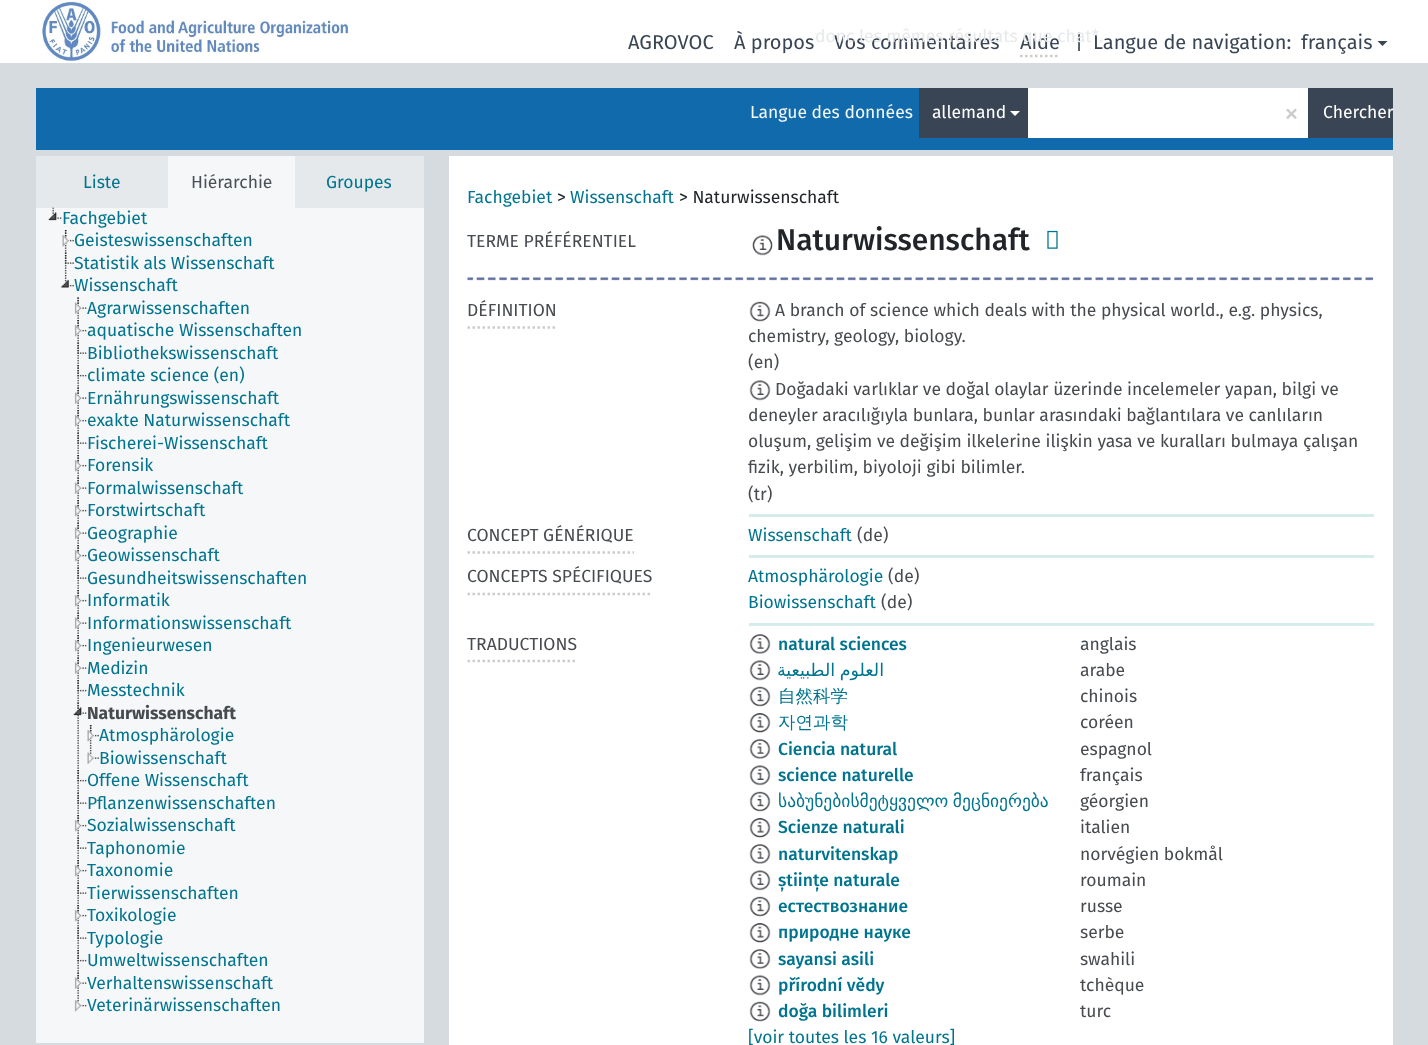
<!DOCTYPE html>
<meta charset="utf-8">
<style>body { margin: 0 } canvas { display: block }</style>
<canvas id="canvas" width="1428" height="1045"></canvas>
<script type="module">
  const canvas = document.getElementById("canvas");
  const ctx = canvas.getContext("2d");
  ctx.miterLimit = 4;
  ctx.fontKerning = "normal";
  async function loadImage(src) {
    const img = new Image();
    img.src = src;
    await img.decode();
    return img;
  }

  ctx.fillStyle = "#d5dbde";
  ctx.fillRect(0, 0, 1428, 1045);
  ctx.fillStyle = "#ffffff";
  ctx.fillRect(0, 0, 1428, 63);
  ctx.drawImage(await loadImage("img1.png"), 41, 1, 308, 61);
  ctx.font = "20px Fira Sans";
  ctx.fillStyle = "#394554";
  ctx.fillText("À propos", 734, 49);
  ctx.fillText("Aide", 1020, 49);
  ctx.fillText("Vos commentaires", 834, 49);
  ctx.fillText("|", 1075, 49);
  ctx.fillText("Langue de navigation:", 1093, 49);
  ctx.font = "17.5px Fira Sans";
  ctx.fillStyle = "#e7e9eb";
  ctx.fillText("donc les mêmes résultats que chat*.", 815, 42);
  ctx.beginPath();
  ctx.moveTo(1020, 56);
  ctx.lineTo(1060, 56);
  ctx.strokeStyle = "#cccccc";
  ctx.lineWidth = 2.5;
  ctx.setLineDash([2.5, 2.5]);
  ctx.stroke();
  ctx.font = "20px Fira Sans";
  ctx.fillStyle = "#394554";
  ctx.fillText("AGROVOC", 628, 49);
  ctx.fillText("français", 1301, 49);
  ctx.beginPath();
  ctx.moveTo(1377.5, 41);
  ctx.lineTo(1387.5, 41);
  ctx.lineTo(1382.5, 46);
  ctx.closePath();
  ctx.fill();
  ctx.fillStyle = "#116aab";
  ctx.fillRect(36, 88, 1357, 62);
  ctx.font = "17.5px Fira Sans";
  ctx.fillStyle = "#f3f8fb";
  ctx.fillText("Langue des données", 750, 118);
  ctx.fillStyle = "#394554";
  ctx.fillRect(919, 88, 109, 50);
  ctx.fillStyle = "#ffffff";
  ctx.fillText("allemand", 932, 118);
  ctx.beginPath();
  ctx.moveTo(1010, 111);
  ctx.lineTo(1020, 111);
  ctx.lineTo(1015, 116);
  ctx.closePath();
  ctx.fill();
  ctx.fillRect(1028, 88, 280, 50);
  ctx.font = "30px Fira Sans";
  ctx.fillStyle = "#cccccc";
  ctx.fillText("×", 1284, 123);
  ctx.fillStyle = "#394554";
  ctx.fillRect(1308, 88, 85, 50);
  ctx.font = "17.5px Fira Sans";
  ctx.fillStyle = "#ffffff";
  ctx.fillText("Chercher", 1323, 118);
  ctx.fillStyle = "#e6e9eb";
  ctx.fillRect(36, 156, 132, 52);
  ctx.fillStyle = "#00748f";
  ctx.fillText("Liste", 83, 188);
  ctx.fillStyle = "#f6f7f8";
  ctx.fillRect(168, 156, 127, 52);
  ctx.fillStyle = "#495057";
  ctx.fillText("Hiérarchie", 191, 188);
  ctx.fillStyle = "#e6e9eb";
  ctx.fillRect(295, 156, 129, 52);
  ctx.fillStyle = "#00748f";
  ctx.fillText("Groupes", 326, 188);
  ctx.fillStyle = "#f6f7f8";
  ctx.fillRect(36, 208, 388, 835);
  ctx.drawImage(await loadImage("img2.png"), 48, 207, 14, 14);
  ctx.fillStyle = "#00748f";
  ctx.fillText("Fachgebiet", 62, 224);
  ctx.drawImage(await loadImage("img3.png"), 64, 230, 3, 22);
  ctx.drawImage(await loadImage("img4.png"), 62, 230, 12, 17);
  ctx.fillText("Geisteswissenschaften", 74, 246);
  ctx.drawImage(await loadImage("img5.png"), 64, 252, 3, 22);
  ctx.drawImage(await loadImage("img6.png"), 64, 252, 10, 12);
  ctx.fillText("Statistik als Wissenschaft", 74, 269);
  ctx.drawImage(await loadImage("img7.png"), 61, 275, 13, 13);
  ctx.fillText("Wissenschaft", 74, 291);
  ctx.drawImage(await loadImage("img8.png"), 77, 297, 2, 22);
  ctx.drawImage(await loadImage("img9.png"), 74, 297, 13, 17);
  ctx.fillText("Agrarwissenschaften", 87, 314);
  ctx.drawImage(await loadImage("img10.png"), 77, 320, 2, 22);
  ctx.drawImage(await loadImage("img11.png"), 74, 320, 13, 17);
  ctx.fillText("aquatische Wissenschaften", 87, 336);
  ctx.drawImage(await loadImage("img8.png"), 77, 342, 2, 22);
  ctx.drawImage(await loadImage("img12.png"), 77, 342, 10, 12);
  ctx.fillText("Bibliothekswissenschaft", 87, 359);
  ctx.drawImage(await loadImage("img10.png"), 77, 365, 2, 22);
  ctx.drawImage(await loadImage("img13.png"), 77, 365, 10, 12);
  ctx.fillText("climate science (en)", 87, 381);
  ctx.drawImage(await loadImage("img8.png"), 77, 387, 2, 22);
  ctx.drawImage(await loadImage("img9.png"), 74, 387, 13, 17);
  ctx.fillText("Ernährungswissenschaft", 87, 404);
  ctx.drawImage(await loadImage("img10.png"), 77, 410, 2, 22);
  ctx.drawImage(await loadImage("img11.png"), 74, 410, 13, 17);
  ctx.fillText("exakte Naturwissenschaft", 87, 426);
  ctx.drawImage(await loadImage("img8.png"), 77, 432, 2, 22);
  ctx.drawImage(await loadImage("img12.png"), 77, 432, 10, 12);
  ctx.fillText("Fischerei-Wissenschaft", 87, 449);
  ctx.drawImage(await loadImage("img10.png"), 77, 455, 2, 22);
  ctx.drawImage(await loadImage("img11.png"), 74, 455, 13, 17);
  ctx.fillText("Forensik", 87, 471);
  ctx.drawImage(await loadImage("img8.png"), 77, 477, 2, 22);
  ctx.drawImage(await loadImage("img9.png"), 74, 477, 13, 17);
  ctx.fillText("Formalwissenschaft", 87, 494);
  ctx.drawImage(await loadImage("img10.png"), 77, 500, 2, 22);
  ctx.drawImage(await loadImage("img11.png"), 74, 500, 13, 17);
  ctx.fillText("Forstwirtschaft", 87, 516);
  ctx.drawImage(await loadImage("img8.png"), 77, 522, 2, 22);
  ctx.drawImage(await loadImage("img9.png"), 74, 522, 13, 17);
  ctx.fillText("Geographie", 87, 539);
  ctx.drawImage(await loadImage("img10.png"), 77, 545, 2, 22);
  ctx.drawImage(await loadImage("img11.png"), 74, 545, 13, 17);
  ctx.fillText("Geowissenschaft", 87, 561);
  ctx.drawImage(await loadImage("img8.png"), 77, 567, 2, 22);
  ctx.drawImage(await loadImage("img12.png"), 77, 567, 10, 12);
  ctx.fillText("Gesundheitswissenschaften", 87, 584);
  ctx.drawImage(await loadImage("img10.png"), 77, 590, 2, 22);
  ctx.drawImage(await loadImage("img11.png"), 74, 590, 13, 17);
  ctx.fillText("Informatik", 87, 606);
  ctx.drawImage(await loadImage("img8.png"), 77, 612, 2, 22);
  ctx.drawImage(await loadImage("img9.png"), 74, 612, 13, 17);
  ctx.fillText("Informationswissenschaft", 87, 629);
  ctx.drawImage(await loadImage("img10.png"), 77, 635, 2, 22);
  ctx.drawImage(await loadImage("img11.png"), 74, 635, 13, 17);
  ctx.fillText("Ingenieurwesen", 87, 651);
  ctx.drawImage(await loadImage("img8.png"), 77, 657, 2, 22);
  ctx.drawImage(await loadImage("img9.png"), 74, 657, 13, 17);
  ctx.fillText("Medizin", 87, 674);
  ctx.drawImage(await loadImage("img10.png"), 77, 680, 2, 22);
  ctx.drawImage(await loadImage("img13.png"), 77, 680, 10, 12);
  ctx.fillText("Messtechnik", 87, 696);
  ctx.drawImage(await loadImage("img14.png"), 77, 702, 2, 67);
  ctx.drawImage(await loadImage("img15.png"), 73, 702, 14, 14);
  ctx.font = "bold 17.5px Fira Sans";
  ctx.fillStyle = "#474b4f";
  ctx.fillText("Naturwissenschaft", 87, 719);
  ctx.drawImage(await loadImage("img3.png"), 89, 725, 3, 22);
  ctx.drawImage(await loadImage("img4.png"), 87, 725, 12, 17);
  ctx.font = "17.5px Fira Sans";
  ctx.fillStyle = "#00748f";
  ctx.fillText("Atmosphärologie", 99, 741);
  ctx.drawImage(await loadImage("img16.png"), 87, 747, 12, 17);
  ctx.fillText("Biowissenschaft", 99, 764);
  ctx.drawImage(await loadImage("img10.png"), 77, 770, 2, 22);
  ctx.drawImage(await loadImage("img13.png"), 77, 770, 10, 12);
  ctx.fillText("Offene Wissenschaft", 87, 786);
  ctx.drawImage(await loadImage("img8.png"), 77, 792, 2, 22);
  ctx.drawImage(await loadImage("img12.png"), 77, 792, 10, 12);
  ctx.fillText("Pflanzenwissenschaften", 87, 809);
  ctx.drawImage(await loadImage("img10.png"), 77, 815, 2, 22);
  ctx.drawImage(await loadImage("img11.png"), 74, 815, 13, 17);
  ctx.fillText("Sozialwissenschaft", 87, 831);
  ctx.drawImage(await loadImage("img8.png"), 77, 837, 2, 22);
  ctx.drawImage(await loadImage("img12.png"), 77, 837, 10, 12);
  ctx.fillText("Taphonomie", 87, 854);
  ctx.drawImage(await loadImage("img10.png"), 77, 860, 2, 22);
  ctx.drawImage(await loadImage("img11.png"), 74, 860, 13, 17);
  ctx.fillText("Taxonomie", 87, 876);
  ctx.drawImage(await loadImage("img8.png"), 77, 882, 2, 22);
  ctx.drawImage(await loadImage("img12.png"), 77, 882, 10, 12);
  ctx.fillText("Tierwissenschaften", 87, 899);
  ctx.drawImage(await loadImage("img10.png"), 77, 905, 2, 22);
  ctx.drawImage(await loadImage("img11.png"), 74, 905, 13, 17);
  ctx.fillText("Toxikologie", 87, 921);
  ctx.drawImage(await loadImage("img8.png"), 77, 927, 2, 22);
  ctx.drawImage(await loadImage("img12.png"), 77, 927, 10, 12);
  ctx.fillText("Typologie", 87, 944);
  ctx.drawImage(await loadImage("img10.png"), 77, 950, 2, 22);
  ctx.drawImage(await loadImage("img13.png"), 77, 950, 10, 12);
  ctx.fillText("Umweltwissenschaften", 87, 966);
  ctx.drawImage(await loadImage("img8.png"), 77, 972, 2, 22);
  ctx.drawImage(await loadImage("img9.png"), 74, 972, 13, 17);
  ctx.fillText("Verhaltenswissenschaft", 87, 989);
  ctx.drawImage(await loadImage("img17.png"), 74, 995, 13, 17);
  ctx.fillText("Veterinärwissenschaften", 87, 1011);
  ctx.fillStyle = "#ffffff";
  ctx.fillRect(449, 156, 944, 889);
  ctx.fillStyle = "#00748f";
  ctx.fillText("Fachgebiet", 467, 203);
  ctx.fillStyle = "#212529";
  ctx.fillText(">", 557, 203);
  ctx.fillStyle = "#00748f";
  ctx.fillText("Wissenschaft", 570, 203);
  ctx.fillStyle = "#212529";
  ctx.fillText("> Naturwissenschaft", 679, 203);
  ctx.fillStyle = "#474b4f";
  ctx.fillText("TERME PRÉFÉRENTIEL", 467, 247);
  ctx.drawImage(await loadImage("img18.png"), 752, 235, 21, 21);
  ctx.font = "500 30px Fira Sans";
  ctx.fillStyle = "#212529";
  ctx.fillText("Naturwissenschaft", 776, 250);
  ctx.drawImage(await loadImage("img19.png"), 1047, 230, 11, 19);
  ctx.drawImage(await loadImage("img20.png"), 467, 277, 907, 4);
  ctx.beginPath();
  ctx.moveTo(467.5, 327.5);
  ctx.lineTo(556, 327.5);
  ctx.stroke();
  ctx.font = "17.5px Fira Sans";
  ctx.fillStyle = "#474b4f";
  ctx.fillText("DÉFINITION", 467, 316);
  ctx.fillStyle = "#d4edeb";
  ctx.fillRect(749, 514, 625, 3);
  ctx.drawImage(await loadImage("img21.png"), 749, 301, 22, 21);
  ctx.fillStyle = "#474b4f";
  ctx.fillText("A branch of science which deals with the physical world., e.g. physics,", 775, 316);
  ctx.fillText("chemistry, geology, biology.", 748, 342);
  ctx.fillText("(en)", 748, 368);
  ctx.drawImage(await loadImage("img22.png"), 749, 380, 22, 21);
  ctx.fillText("Doğadaki varlıklar ve doğal olaylar üzerinde incelemeler yapan, bilgi ve", 775, 395);
  ctx.fillText("deneyler aracılığıyla bunlara, bunlar arasındaki bağlantılara ve canlıların", 748, 421);
  ctx.fillText("oluşum, gelişim ve değişim ilkelerine ilişkin yasa ve kuralları bulmaya çalışan", 748, 447);
  ctx.fillText("fizik, yerbilim, biyoloji gibi bilimler.", 748, 473);
  ctx.fillText("(tr)", 748, 500);
  ctx.beginPath();
  ctx.moveTo(467.5, 552.5);
  ctx.lineTo(634, 552.5);
  ctx.stroke();
  ctx.fillText("CONCEPT GÉNÉRIQUE", 467, 541);
  ctx.fillStyle = "#d4edeb";
  ctx.fillRect(749, 555, 625, 3);
  ctx.fillStyle = "#00748f";
  ctx.fillText("Wissenschaft", 748, 541);
  ctx.fillStyle = "#474b4f";
  ctx.fillText("(de)", 857, 541);
  ctx.beginPath();
  ctx.moveTo(467.5, 594);
  ctx.lineTo(652.5, 594);
  ctx.stroke();
  ctx.fillText("CONCEPTS SPÉCIFIQUES", 467, 582);
  ctx.fillStyle = "#d4edeb";
  ctx.fillRect(749, 623, 625, 3);
  ctx.fillStyle = "#00748f";
  ctx.fillText("Atmosphärologie", 748, 582);
  ctx.fillStyle = "#474b4f";
  ctx.fillText("(de)", 888, 582);
  ctx.fillStyle = "#00748f";
  ctx.fillText("Biowissenschaft", 748, 608);
  ctx.fillStyle = "#474b4f";
  ctx.fillText("(de)", 881, 608);
  ctx.beginPath();
  ctx.moveTo(467.5, 661);
  ctx.lineTo(577.5, 661);
  ctx.stroke();
  ctx.fillText("TRADUCTIONS", 467, 650);
  ctx.drawImage(await loadImage("img23.png"), 749, 634, 22, 20);
  ctx.font = "500 17.5px Fira Sans";
  ctx.fillStyle = "#00748f";
  ctx.fillText("natural sciences", 778, 650);
  ctx.font = "17.5px Fira Sans";
  ctx.fillStyle = "#474b4f";
  ctx.fillText("anglais", 1080, 650);
  ctx.drawImage(await loadImage("img22.png"), 749, 660, 22, 21);
  ctx.wordSpacing = "-1px";
  ctx.direction = "rtl";
  ctx.font = "17.5px DejaVu Sans";
  ctx.fillStyle = "#00748f";
  ctx.fillText("العلوم الطبيعية", 884, 676);
  ctx.wordSpacing = "0px";
  ctx.direction = "ltr";
  ctx.font = "17.5px Fira Sans";
  ctx.fillStyle = "#474b4f";
  ctx.fillText("arabe", 1080, 676);
  ctx.drawImage(await loadImage("img21.png"), 749, 686, 22, 21);
  ctx.font = "500 17.5px WenQuanYi Zen Hei";
  ctx.fillStyle = "#00748f";
  ctx.fillText("自然科学", 778, 702);
  ctx.font = "17.5px Fira Sans";
  ctx.fillStyle = "#474b4f";
  ctx.fillText("chinois", 1080, 702);
  ctx.drawImage(await loadImage("img24.png"), 749, 713, 22, 20);
  ctx.font = "500 17.5px WenQuanYi Zen Hei";
  ctx.fillStyle = "#00748f";
  ctx.fillText("자연과학", 778, 728);
  ctx.font = "17.5px Fira Sans";
  ctx.fillStyle = "#474b4f";
  ctx.fillText("coréen", 1080, 728);
  ctx.drawImage(await loadImage("img25.png"), 749, 739, 22, 20);
  ctx.font = "500 17.5px Fira Sans";
  ctx.fillStyle = "#00748f";
  ctx.fillText("Ciencia natural", 778, 755);
  ctx.font = "17.5px Fira Sans";
  ctx.fillStyle = "#474b4f";
  ctx.fillText("espagnol", 1080, 755);
  ctx.drawImage(await loadImage("img26.png"), 749, 765, 22, 21);
  ctx.font = "500 17.5px Fira Sans";
  ctx.fillStyle = "#00748f";
  ctx.fillText("science naturelle", 778, 781);
  ctx.font = "17.5px Fira Sans";
  ctx.fillStyle = "#474b4f";
  ctx.fillText("français", 1080, 781);
  ctx.drawImage(await loadImage("img27.png"), 749, 791, 22, 21);
  ctx.wordSpacing = "-1px";
  ctx.font = "17.5px DejaVu Sans";
  ctx.fillStyle = "#00748f";
  ctx.fillText("საბუნებისმეტყველო მეცნიერება", 778, 807);
  ctx.wordSpacing = "0px";
  ctx.font = "17.5px Fira Sans";
  ctx.fillStyle = "#474b4f";
  ctx.fillText("géorgien", 1080, 807);
  ctx.drawImage(await loadImage("img28.png"), 749, 818, 22, 20);
  ctx.font = "500 17.5px Fira Sans";
  ctx.fillStyle = "#00748f";
  ctx.fillText("Scienze naturali", 778, 833);
  ctx.font = "17.5px Fira Sans";
  ctx.fillStyle = "#474b4f";
  ctx.fillText("italien", 1080, 833);
  ctx.drawImage(await loadImage("img25.png"), 749, 844, 22, 20);
  ctx.font = "500 17.5px Fira Sans";
  ctx.fillStyle = "#00748f";
  ctx.fillText("naturvitenskap", 778, 860);
  ctx.font = "17.5px Fira Sans";
  ctx.fillStyle = "#474b4f";
  ctx.fillText("norvégien bokmål", 1080, 860);
  ctx.drawImage(await loadImage("img29.png"), 749, 870, 22, 21);
  ctx.font = "500 17.5px Fira Sans";
  ctx.fillStyle = "#00748f";
  ctx.fillText("științe naturale", 778, 886);
  ctx.font = "17.5px Fira Sans";
  ctx.fillStyle = "#474b4f";
  ctx.fillText("roumain", 1080, 886);
  ctx.drawImage(await loadImage("img21.png"), 749, 896, 22, 21);
  ctx.font = "500 17.5px Fira Sans";
  ctx.fillStyle = "#00748f";
  ctx.fillText("естествознание", 778, 912);
  ctx.font = "17.5px Fira Sans";
  ctx.fillStyle = "#474b4f";
  ctx.fillText("russe", 1080, 912);
  ctx.drawImage(await loadImage("img24.png"), 749, 923, 22, 20);
  ctx.font = "500 17.5px Fira Sans";
  ctx.fillStyle = "#00748f";
  ctx.fillText("природне науке", 778, 938);
  ctx.font = "17.5px Fira Sans";
  ctx.fillStyle = "#474b4f";
  ctx.fillText("serbe", 1080, 938);
  ctx.drawImage(await loadImage("img23.png"), 749, 949, 22, 20);
  ctx.font = "500 17.5px Fira Sans";
  ctx.fillStyle = "#00748f";
  ctx.fillText("sayansi asili", 778, 965);
  ctx.font = "17.5px Fira Sans";
  ctx.fillStyle = "#474b4f";
  ctx.fillText("swahili", 1080, 965);
  ctx.drawImage(await loadImage("img26.png"), 749, 975, 22, 21);
  ctx.font = "500 17.5px Fira Sans";
  ctx.fillStyle = "#00748f";
  ctx.fillText("přírodní vědy", 778, 991);
  ctx.font = "17.5px Fira Sans";
  ctx.fillStyle = "#474b4f";
  ctx.fillText("tchèque", 1080, 991);
  ctx.drawImage(await loadImage("img21.png"), 749, 1001, 22, 21);
  ctx.font = "500 17.5px Fira Sans";
  ctx.fillStyle = "#00748f";
  ctx.fillText("doğa bilimleri", 778, 1017);
  ctx.font = "17.5px Fira Sans";
  ctx.fillStyle = "#474b4f";
  ctx.fillText("turc", 1080, 1017);
  ctx.fillStyle = "#00748f";
  ctx.fillText("[voir toutes les 16 valeurs]", 748, 1043);
</script>
